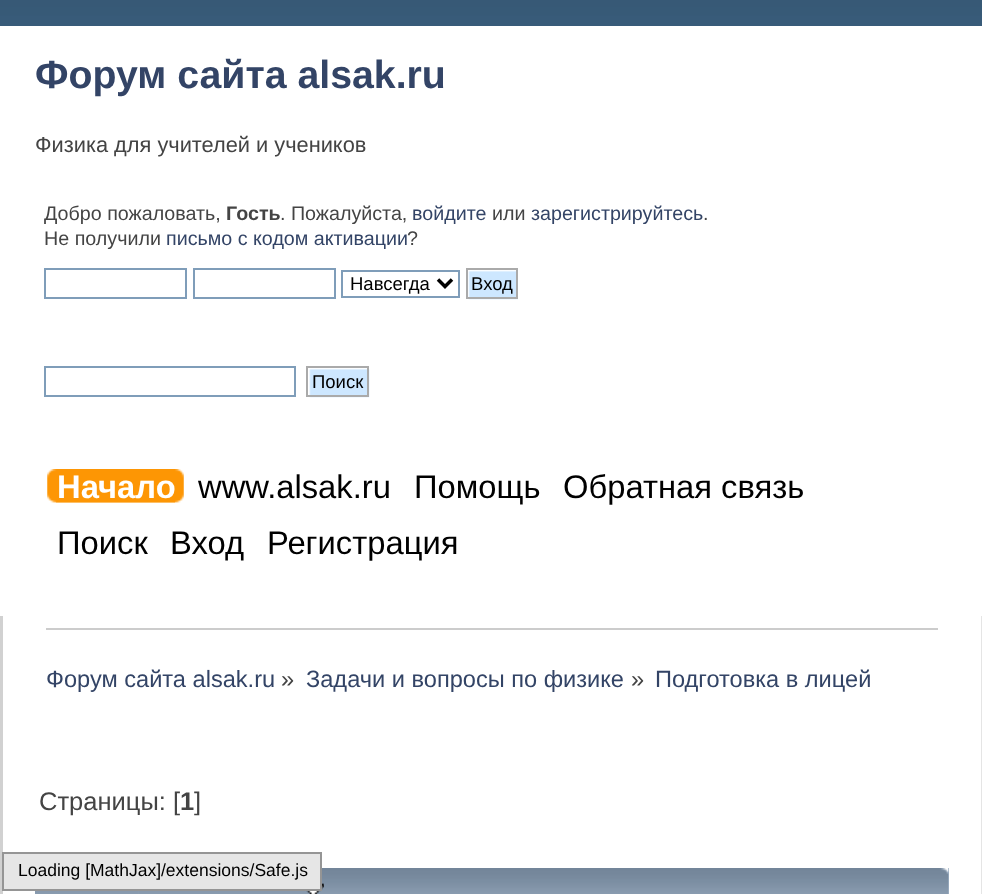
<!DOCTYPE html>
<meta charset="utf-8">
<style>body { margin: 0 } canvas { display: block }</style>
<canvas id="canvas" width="982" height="894"></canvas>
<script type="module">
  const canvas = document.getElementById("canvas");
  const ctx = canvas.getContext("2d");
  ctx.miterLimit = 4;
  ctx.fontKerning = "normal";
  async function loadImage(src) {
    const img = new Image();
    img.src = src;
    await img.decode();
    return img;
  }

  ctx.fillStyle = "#ffffff";
  ctx.fillRect(0, 0, 982, 894);
  ctx.drawImage(await loadImage("img1.png"), 0, 0, 982, 26);
  ctx.font = "bold 39.25px Liberation Sans";
  ctx.fillStyle = "#334466";
  ctx.fillText("Форум сайта alsak.ru", 35, 88);
  ctx.font = "21.8px Liberation Sans";
  ctx.fillStyle = "#444444";
  ctx.fillText("Физика для учителей и учеников", 35, 152);
  ctx.save();
  ctx.beginPath();
  ctx.rect(44, 193, 896, 129);
  ctx.clip();
  ctx.font = "19.7px Liberation Sans";
  ctx.fillText("Добро пожаловать,", 44, 220);
  ctx.restore();
  ctx.font = "bold 19.7px Liberation Sans";
  ctx.fillText("Гость", 226, 220);
  ctx.font = "19.7px Liberation Sans";
  ctx.fillText(". Пожалуйста,", 280, 220);
  ctx.fillStyle = "#334466";
  ctx.fillText("войдите", 412, 220);
  ctx.fillStyle = "#444444";
  ctx.fillText("или", 492, 220);
  ctx.fillStyle = "#334466";
  ctx.fillText("зарегистрируйтесь", 531, 220);
  ctx.fillStyle = "#444444";
  ctx.fillText(".", 703, 220);
  ctx.fillText("Не получили", 44, 245);
  ctx.fillStyle = "#334466";
  ctx.fillText("письмо с кодом активации", 166, 245);
  ctx.fillStyle = "#444444";
  ctx.fillText("?", 407, 245);
  ctx.strokeStyle = "#7f9db9";
  ctx.lineWidth = 2;
  ctx.strokeRect(45, 269, 141, 29);
  ctx.strokeRect(194, 269, 141, 29);
  ctx.strokeRect(342, 271, 117, 26);
  ctx.beginPath();
  ctx.moveTo(438, 279.5);
  ctx.lineTo(445, 286.5);
  ctx.lineTo(452, 279.5);
  ctx.strokeStyle = "#000000";
  ctx.lineWidth = 3.5;
  ctx.stroke();
  ctx.font = "18.5px Liberation Sans";
  ctx.fillStyle = "#000000";
  ctx.fillText("Навсегда", 350, 290);
  ctx.drawImage(await loadImage("img2.png"), 467, 270, 51, 30);
  ctx.strokeStyle = "#aaaaaa";
  ctx.lineWidth = 2;
  ctx.strokeRect(467, 269, 50, 29);
  ctx.fillText("Вход", 471, 290);
  ctx.strokeStyle = "#7f9db9";
  ctx.strokeRect(45, 367, 250, 29);
  ctx.drawImage(await loadImage("img3.png"), 308, 367, 62, 31);
  ctx.strokeStyle = "#aaaaaa";
  ctx.strokeRect(307, 367, 61, 29);
  ctx.fillText("Поиск", 312, 388);
  ctx.drawImage(await loadImage("img4.png"), 56, 469, 128, 34);
  ctx.drawImage(await loadImage("img5.png"), 47, 469, 128, 34);
  ctx.font = "bold 32.75px Liberation Sans";
  ctx.fillStyle = "#ffffff";
  ctx.fillText("Начало", 57, 498);
  ctx.font = "32.75px Liberation Sans";
  ctx.fillStyle = "#000000";
  ctx.fillText("www.alsak.ru", 198, 498);
  ctx.fillText("Помощь", 414, 498);
  ctx.fillText("Обратная связь", 563, 498);
  ctx.fillText("Поиск", 57, 554);
  ctx.fillText("Вход", 170, 554);
  ctx.fillText("Регистрация", 267, 554);
  ctx.fillStyle = "#d1d1d1";
  ctx.fillRect(0, 616, 3, 278);
  ctx.fillStyle = "#e5e5e5";
  ctx.fillRect(981, 616, 1, 278);
  ctx.fillStyle = "#cccccc";
  ctx.fillRect(46, 628, 892, 2);
  ctx.font = "23.6px Liberation Sans";
  ctx.fillStyle = "#334466";
  ctx.fillText("Форум сайта alsak.ru", 46, 687);
  ctx.fillStyle = "#444444";
  ctx.fillText("»", 281, 687);
  ctx.fillStyle = "#334466";
  ctx.fillText("Задачи и вопросы по физике", 306, 687);
  ctx.fillStyle = "#444444";
  ctx.fillText("»", 631, 687);
  ctx.fillStyle = "#334466";
  ctx.fillText("Подготовка в лицей", 655, 687);
  ctx.font = "25.5px Liberation Sans";
  ctx.fillStyle = "#444444";
  ctx.fillText("Страницы: [", 39, 810);
  ctx.font = "bold 25.5px Liberation Sans";
  ctx.fillText("1", 180, 810);
  ctx.font = "25.5px Liberation Sans";
  ctx.fillText("]", 194, 810);
  ctx.fillStyle = "#a7b9cd";
  ctx.fillRect(138, 868, 811, 26);
  ctx.drawImage(await loadImage("img6.png"), 35, 891, 104, 3);
  ctx.drawImage(await loadImage("img7.png"), 138, 868, 310, 26);
  ctx.drawImage(await loadImage("img8.png"), 306, 883, 18, 11);
  ctx.drawImage(await loadImage("img9.png"), 448, 868, 273, 26);
  ctx.drawImage(await loadImage("img10.png"), 721, 868, 228, 26);
  ctx.fillStyle = "#e6e6e6";
  ctx.beginPath();
  ctx.rect(3, 853, 318, 37);
  ctx.fill();
  ctx.strokeStyle = "#959595";
  ctx.stroke();
  ctx.font = "17.5px Liberation Sans";
  ctx.fillStyle = "#000000";
  ctx.fillText("Loading [MathJax]/extensions/Safe.js", 18, 876);
</script>
